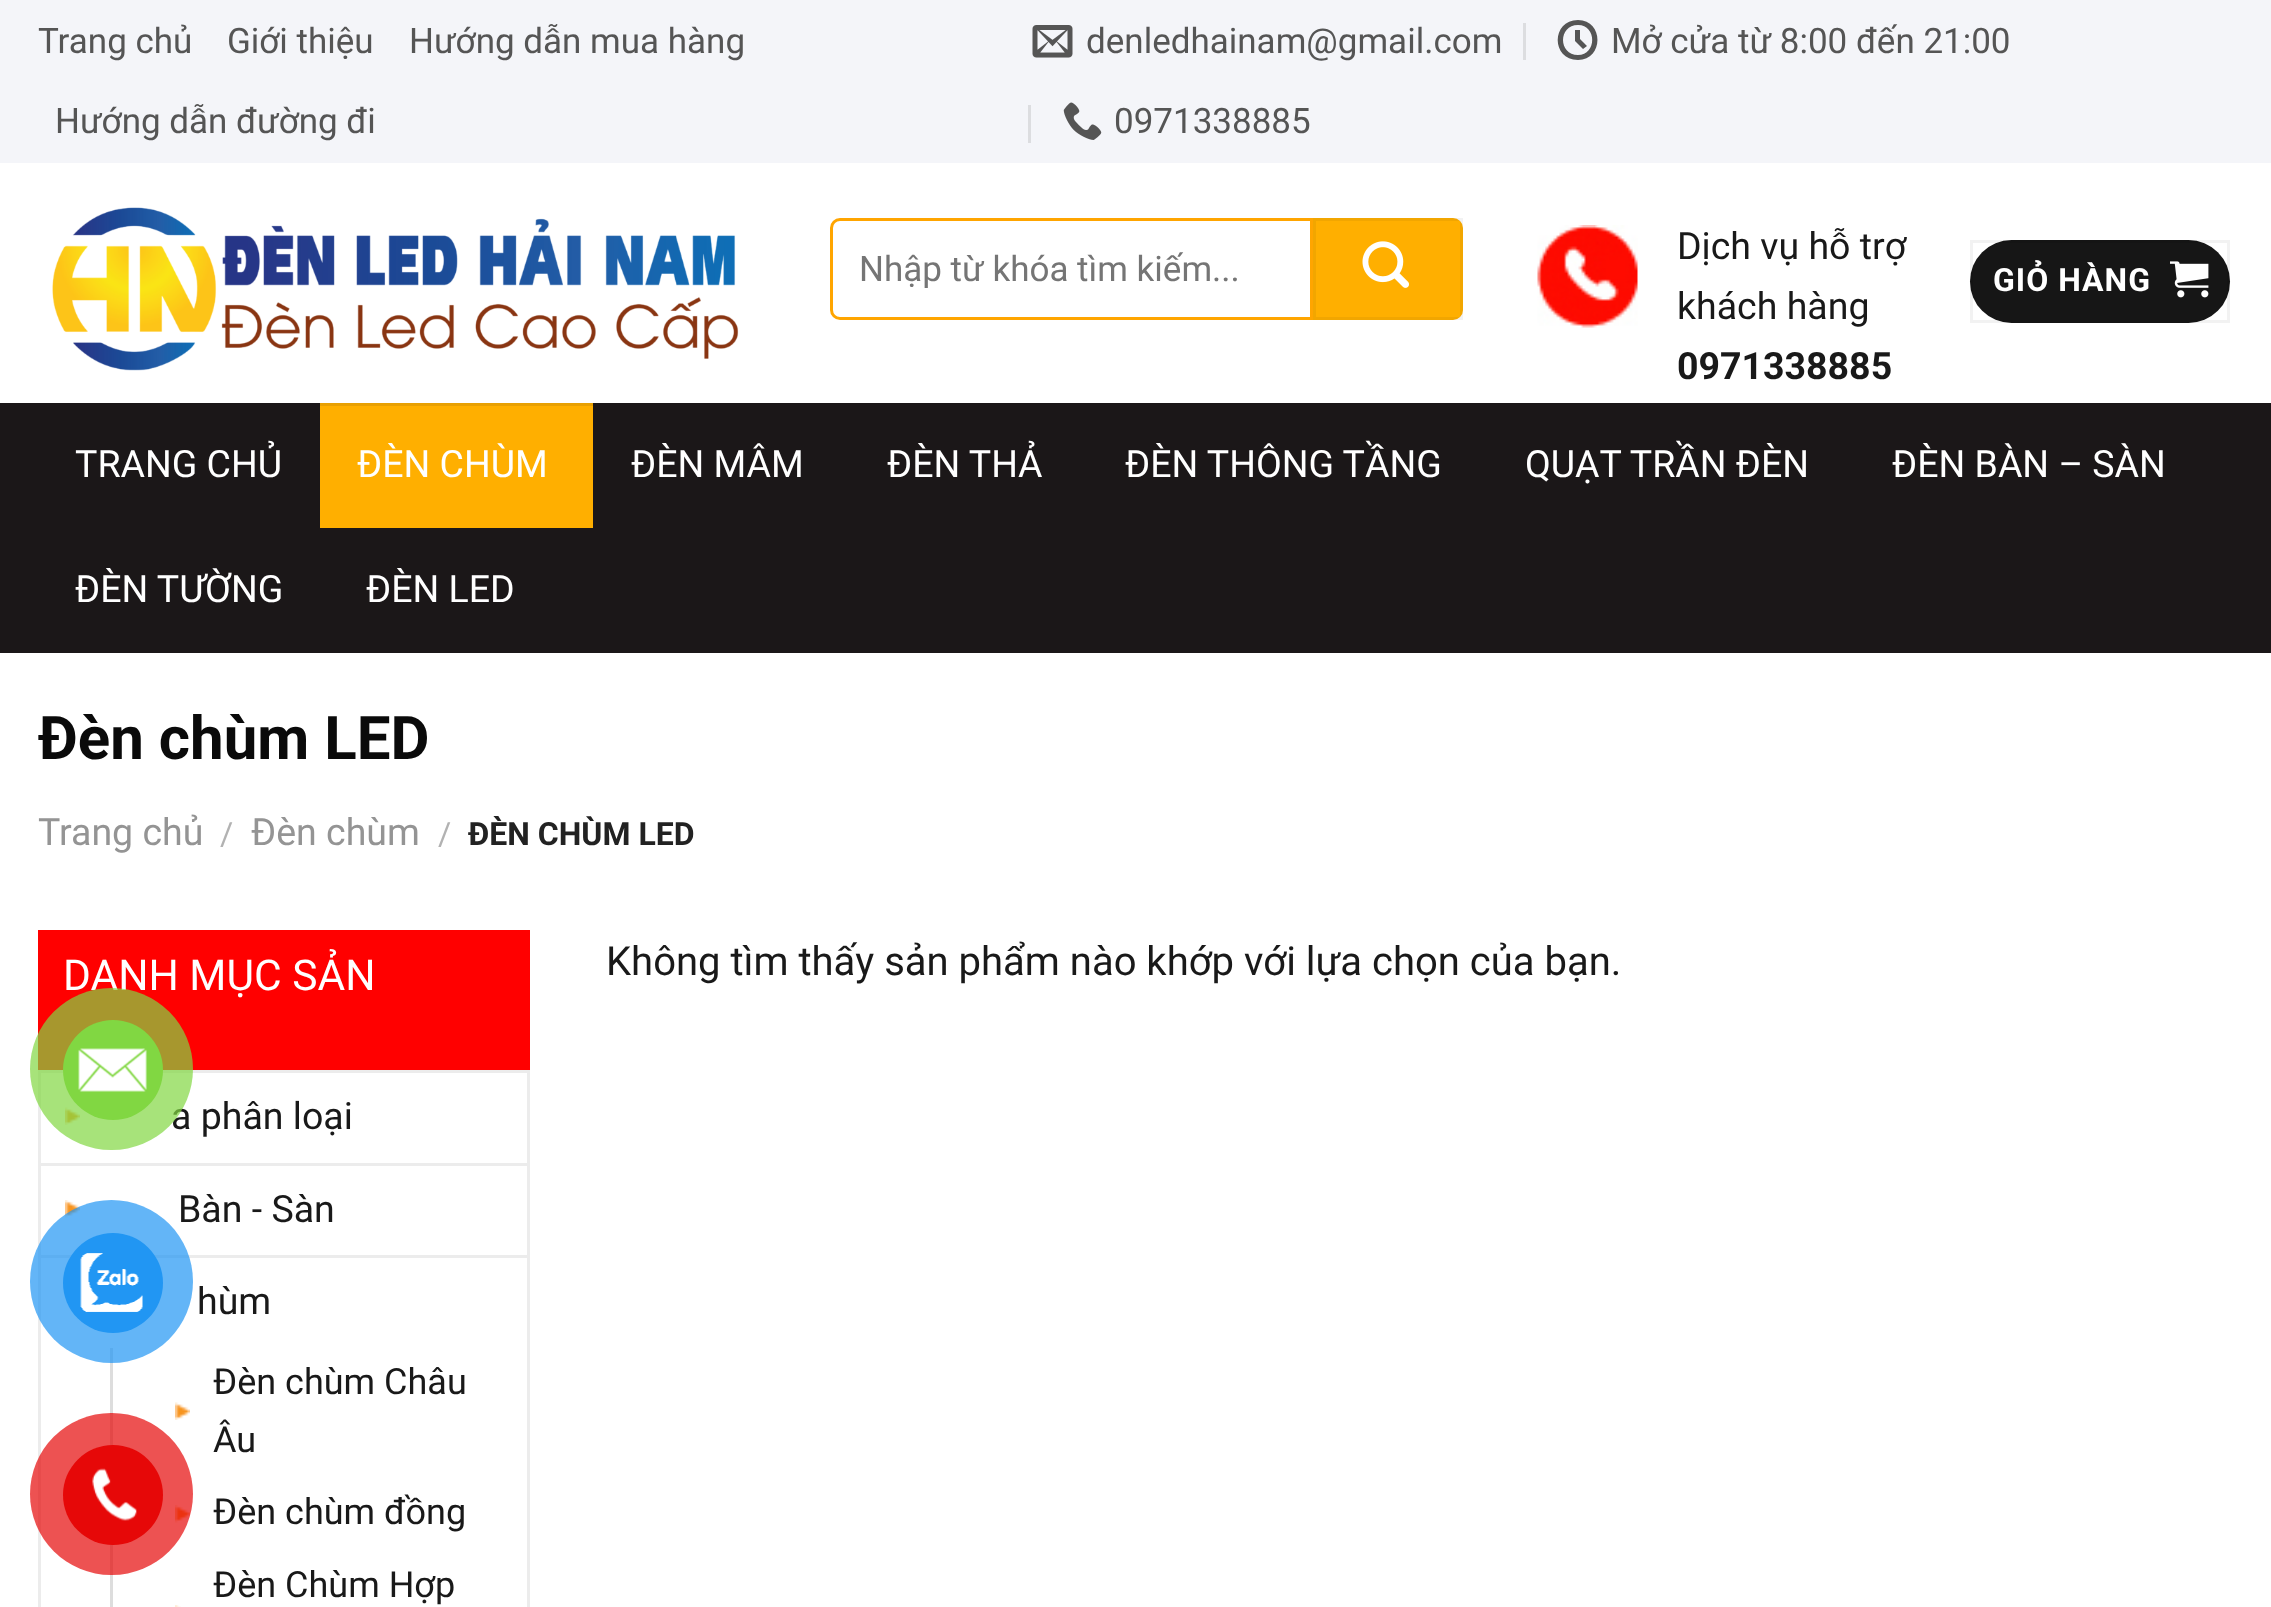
<!DOCTYPE html>
<meta charset="utf-8">
<style>body { margin: 0 } canvas { display: block }</style>
<canvas id="canvas" width="2271" height="1607"></canvas>
<script type="module">
  const canvas = document.getElementById("canvas");
  const ctx = canvas.getContext("2d");
  ctx.miterLimit = 4;
  ctx.fontKerning = "normal";
  async function loadImage(src) {
    const img = new Image();
    img.src = src;
    await img.decode();
    return img;
  }

  ctx.fillStyle = "#ffffff";
  ctx.fillRect(0, 0, 2271, 1607);
  ctx.fillStyle = "#f4f5f9";
  ctx.fillRect(0, 0, 2271, 163);
  ctx.font = "35px Roboto";
  ctx.fillStyle = "#555555";
  ctx.fillText("Trang chủ", 38, 53);
  ctx.fillText("Giới thiệu", 227, 53);
  ctx.fillText("Hướng dẫn mua hàng", 409, 53);
  ctx.fillText("Hướng dẫn đường đi", 55, 133);
  ctx.drawImage(await loadImage("img1.png"), 1032, 25, 41, 33);
  ctx.fillText("denledhainam@gmail.com", 1086, 53);
  ctx.fillStyle = "#dcdde0";
  ctx.fillRect(1523, 23, 3, 37);
  ctx.fillStyle = "#555555";
  ctx.beginPath();
  ctx.moveTo(1583, 49);
  ctx.lineTo(1575, 41);
  ctx.lineTo(1575, 30);
  ctx.lineTo(1580, 30);
  ctx.lineTo(1580, 39);
  ctx.lineTo(1587, 46);
  ctx.closePath();
  ctx.moveTo(1578, 20);
  ctx.bezierCurveTo(1551, 20, 1551, 60, 1578, 60);
  ctx.bezierCurveTo(1604, 60, 1604, 20, 1578, 20);
  ctx.closePath();
  ctx.moveTo(1578, 55);
  ctx.bezierCurveTo(1558, 55, 1558, 25, 1578, 25);
  ctx.bezierCurveTo(1597, 25, 1597, 55, 1578, 55);
  ctx.closePath();
  ctx.fill();
  ctx.fillText("Mở cửa từ 8:00 đến 21:00", 1611, 53);
  ctx.fillStyle = "#dcdde0";
  ctx.fillRect(1028, 105, 3, 38);
  ctx.drawImage(await loadImage("img2.png"), 1063, 102, 39, 38);
  ctx.fillStyle = "#555555";
  ctx.fillText("0971338885", 1114, 133);
  ctx.drawImage(await loadImage("img3.png"), 52, 207, 687, 164);
  ctx.beginPath();
  ctx.roundRect(831.5, 219.5, 480, 99, [8.5, 0, 0, 8.5]);
  ctx.strokeStyle = "#ffa500";
  ctx.lineWidth = 3;
  ctx.stroke();
  ctx.save();
  ctx.beginPath();
  ctx.rect(860, 248, 413, 40);
  ctx.clip();
  ctx.fillStyle = "#757575";
  ctx.fillText("Nhập từ khóa tìm kiếm...", 859, 281);
  ctx.restore();
  ctx.fillStyle = "#ffaf00";
  ctx.beginPath();
  ctx.roundRect(1313, 218, 150, 102, [0, 10, 10, 0]);
  ctx.fill();
  ctx.strokeStyle = "rgba(0, 0, 0, 0.05)";
  ctx.strokeRect(1314.5, 219.5, 147, 99);
  ctx.drawImage(await loadImage("img4.png"), 1362, 241, 47, 47);
  ctx.drawImage(await loadImage("img5.png"), 1537, 225, 101, 103);
  ctx.font = "37.5px Roboto";
  ctx.fillStyle = "#191919";
  ctx.fillText("Dịch vụ hỗ trợ", 1677, 259);
  ctx.fillText("khách hàng", 1677, 319);
  ctx.font = "bold 37.5px Roboto";
  ctx.fillText("0971338885", 1677, 379);
  ctx.fillStyle = "#161616";
  ctx.beginPath();
  ctx.roundRect(1970, 240, 260, 83, 41.5);
  ctx.fill();
  ctx.strokeRect(1971.5, 241.5, 257, 80);
  ctx.letterSpacing = "1px";
  ctx.font = "bold 32px Roboto";
  ctx.fillStyle = "#ffffff";
  ctx.fillText("GIỎ HÀNG", 1993, 291);
  ctx.drawImage(await loadImage("img6.png"), 2170, 261, 39, 37);
  ctx.fillStyle = "#1b1718";
  ctx.fillRect(0, 403, 2271, 250);
  ctx.letterSpacing = "0px";
  ctx.font = "37.5px Roboto";
  ctx.fillStyle = "#ffffff";
  ctx.fillText("TRANG CHỦ", 75, 477);
  ctx.fillStyle = "#ffaf00";
  ctx.fillRect(320, 406, 273, 122);
  ctx.fillStyle = "#e8a003";
  ctx.fillRect(320, 403, 273, 3);
  ctx.fillStyle = "#ffffff";
  ctx.fillText("ĐÈN CHÙM", 357, 477);
  ctx.fillText("ĐÈN MÂM", 631, 477);
  ctx.fillText("ĐÈN THẢ", 887, 477);
  ctx.fillText("ĐÈN THÔNG TẦNG", 1125, 477);
  ctx.fillText("QUẠT TRẦN ĐÈN", 1525, 477);
  ctx.fillText("ĐÈN BÀN – SÀN", 1892, 477);
  ctx.fillText("ĐÈN TƯỜNG", 75, 602);
  ctx.fillText("ĐÈN LED", 366, 602);
  ctx.font = "bold 60px Roboto";
  ctx.fillStyle = "#0a0a0a";
  ctx.fillText("Đèn chùm LED", 38, 759);
  ctx.font = "37.5px Roboto";
  ctx.fillStyle = "#949494";
  ctx.fillText("Trang chủ", 38, 845);
  ctx.font = "32px Roboto";
  ctx.fillStyle = "#b2b2b2";
  ctx.fillText("/", 220, 845);
  ctx.font = "37.5px Roboto";
  ctx.fillStyle = "#949494";
  ctx.fillText("Đèn chùm", 251, 845);
  ctx.font = "32px Roboto";
  ctx.fillStyle = "#b2b2b2";
  ctx.fillText("/", 438, 845);
  ctx.font = "bold 32px Roboto";
  ctx.fillStyle = "#222222";
  ctx.fillText("ĐÈN CHÙM LED", 468, 845);
  ctx.fillStyle = "#ff0000";
  ctx.fillRect(38, 930, 492, 140);
  ctx.font = "42.5px Roboto";
  ctx.fillStyle = "#ffffff";
  ctx.fillText("DANH MỤC SẢN", 63, 990);
  ctx.strokeStyle = "#ececec";
  ctx.strokeRect(39.5, 1071.5, 489, 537);
  ctx.drawImage(await loadImage("img7.png"), 65, 1107, 15, 18);
  ctx.font = "37.5px Roboto";
  ctx.fillStyle = "#191919";
  ctx.fillText("a phân loại", 171, 1129);
  ctx.drawImage(await loadImage("img8.png"), 65, 1200, 15, 18);
  ctx.fillStyle = "#ececec";
  ctx.fillRect(40, 1163, 488, 3);
  ctx.fillStyle = "#191919";
  ctx.fillText("Bàn - Sàn", 178, 1222);
  ctx.fillStyle = "#ececec";
  ctx.fillRect(40, 1255, 488, 3);
  ctx.fillStyle = "#191919";
  ctx.fillText("hùm", 197, 1314);
  ctx.fillStyle = "#dddddd";
  ctx.fillRect(110, 1348, 3, 259);
  ctx.drawImage(await loadImage("img7.png"), 175, 1402, 15, 18);
  ctx.font = "36px Roboto";
  ctx.fillStyle = "#191919";
  ctx.fillText("Đèn chùm Châu", 213, 1394);
  ctx.fillText("Âu", 213, 1452);
  ctx.drawImage(await loadImage("img8.png"), 175, 1505, 15, 18);
  ctx.fillText("Đèn chùm đồng", 213, 1524);
  ctx.drawImage(await loadImage("img9.png"), 175, 1605, 6, 2);
  ctx.fillText("Đèn Chùm Hợp", 213, 1597);
  ctx.font = "40px Roboto";
  ctx.fillText("Không tìm thấy sản phẩm nào khớp với lựa chọn của bạn.", 606, 975);
  ctx.fillStyle = "rgba(129, 215, 66, 0.7)";
  ctx.beginPath();
  ctx.roundRect(30, 988, 163, 162, 81);
  ctx.fill();
  ctx.fillStyle = "#81d742";
  ctx.beginPath();
  ctx.arc(113, 1070, 50, 0, Math.PI * 2);
  ctx.fill();
  ctx.drawImage(await loadImage("img10.png"), 78, 1048, 69, 44);
  ctx.fillStyle = "rgba(33, 150, 243, 0.7)";
  ctx.beginPath();
  ctx.arc(111.5, 1281.5, 81.5, 0, Math.PI * 2);
  ctx.fill();
  ctx.fillStyle = "#2196f3";
  ctx.beginPath();
  ctx.arc(113, 1283, 50, 0, Math.PI * 2);
  ctx.fill();
  ctx.drawImage(await loadImage("img11.png"), 80, 1253, 63, 59);
  ctx.fillStyle = "rgba(230, 8, 8, 0.7)";
  ctx.beginPath();
  ctx.roundRect(30, 1413, 163, 162, 81);
  ctx.fill();
  ctx.fillStyle = "#e60808";
  ctx.beginPath();
  ctx.arc(113, 1495, 50, 0, Math.PI * 2);
  ctx.fill();
  ctx.drawImage(await loadImage("img12.png"), 92, 1468, 45, 53);
</script>
